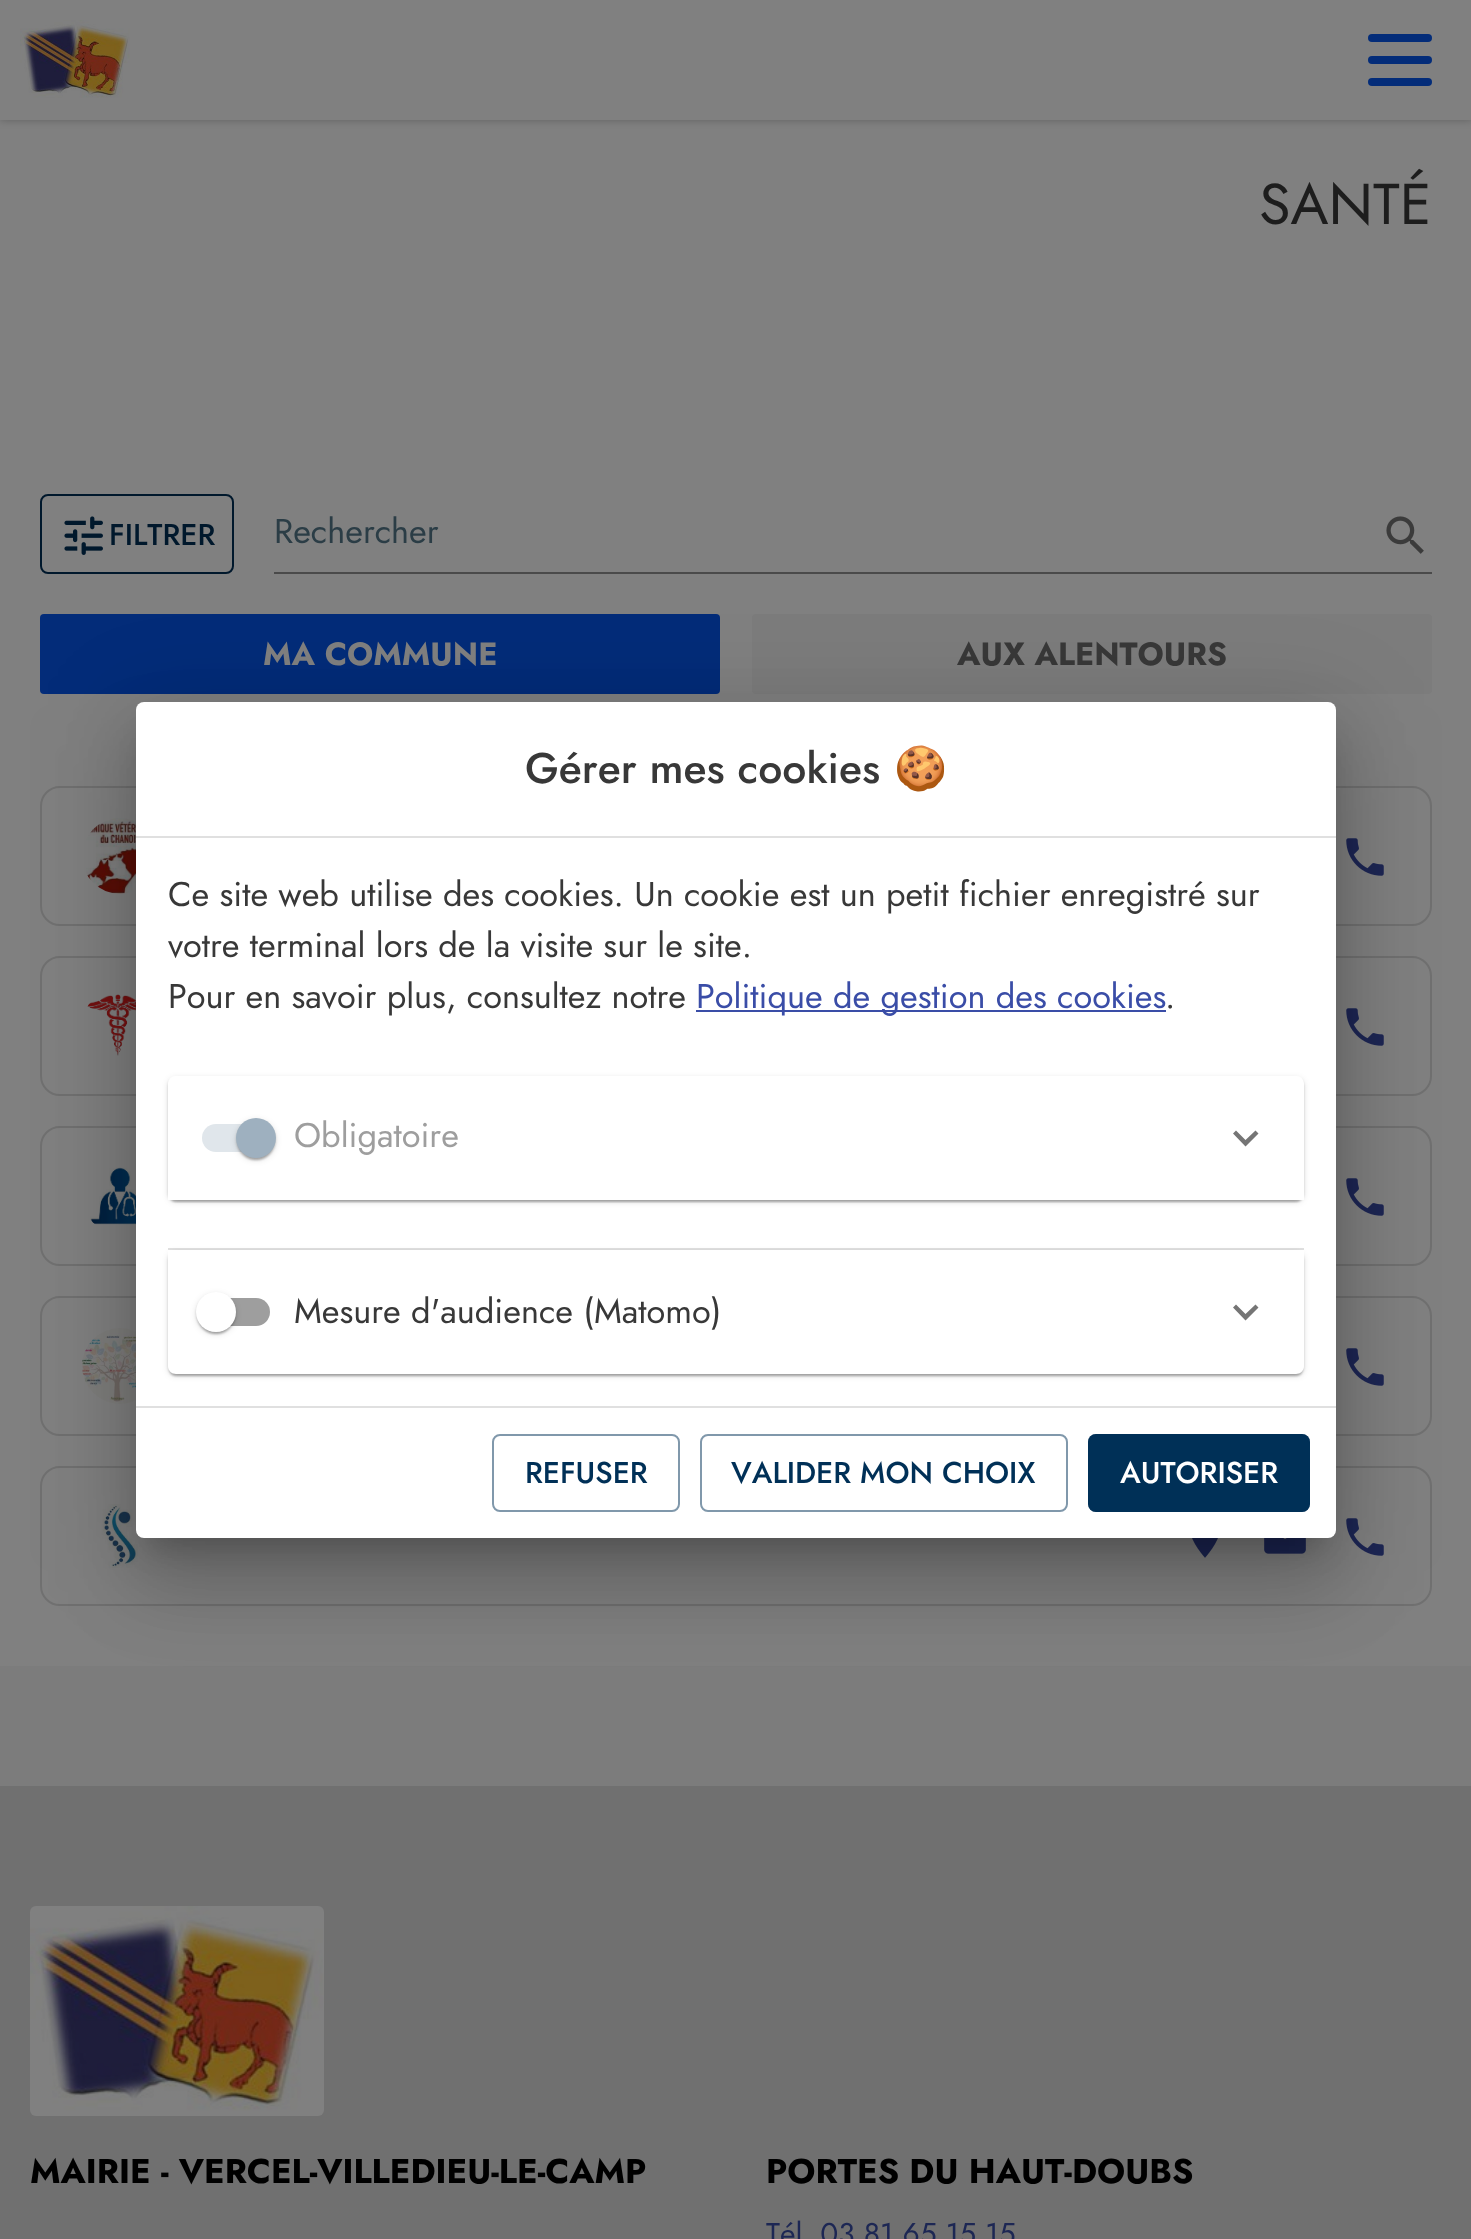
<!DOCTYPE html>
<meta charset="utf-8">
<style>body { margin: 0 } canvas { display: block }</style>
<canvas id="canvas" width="1471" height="2239"></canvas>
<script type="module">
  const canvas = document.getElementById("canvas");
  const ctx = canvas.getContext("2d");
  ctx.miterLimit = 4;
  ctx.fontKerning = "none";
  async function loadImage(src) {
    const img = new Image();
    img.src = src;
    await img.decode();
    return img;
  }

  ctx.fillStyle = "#7c7c7c";
  ctx.fillRect(0, 0, 1471, 2239);
  ctx.fillStyle = "#808080";
  ctx.fillRect(0, 120, 1471, 1546);
  ctx.fillStyle = "rgba(0, 0, 0, 0.25)";
  ctx.filter = "blur(4px)";
  ctx.beginPath();
  ctx.rect(0, 0, 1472, 120);
  ctx.fill();
  ctx.filter = "none";
  ctx.fillStyle = "#808080";
  ctx.fillRect(0, 0, 1471, 120);
  ctx.drawImage(await loadImage("img1.png"), 20, 20, 110, 78);
  ctx.fillStyle = "#032c79";
  ctx.beginPath();
  ctx.roundRect(1368, 34, 64, 8, 4);
  ctx.fill();
  ctx.beginPath();
  ctx.roundRect(1368, 56, 64, 8, 4);
  ctx.fill();
  ctx.beginPath();
  ctx.roundRect(1368, 78, 64, 8, 4);
  ctx.fill();
  ctx.font = "57.5px Jost";
  ctx.fillStyle = "#1d1d1d";
  ctx.fillText("SANTÉ", 1259, 224);
  ctx.beginPath();
  ctx.roundRect(41, 495, 192, 78, 7);
  ctx.strokeStyle = "#00182c";
  ctx.lineWidth = 2;
  ctx.stroke();
  ctx.drawImage(await loadImage("img2.png"), 64, 516, 39, 39);
  ctx.font = "500 30px Jost";
  ctx.fillStyle = "#00182c";
  ctx.fillText("FILTRER", 109, 545);
  ctx.drawImage(await loadImage("img3.png"), 1386, 516, 38, 38);
  ctx.fillStyle = "#4a4a4a";
  ctx.fillRect(274, 572, 1158, 2);
  ctx.font = "34.3px Jost";
  ctx.fillStyle = "#2b3d46";
  ctx.fillText("Rechercher", 274, 543);
  ctx.fillStyle = "#032c79";
  ctx.beginPath();
  ctx.roundRect(40, 614, 680, 80, 4);
  ctx.fill();
  ctx.font = "bold 32px Jost";
  ctx.fillStyle = "#808080";
  ctx.fillText("MA COMMUNE", 263, 665);
  ctx.fillStyle = "#7c7c7c";
  ctx.beginPath();
  ctx.roundRect(752, 614, 680, 80, 4);
  ctx.fill();
  ctx.fillStyle = "#383838";
  ctx.fillText("AUX ALENTOURS", 957, 665);
  ctx.beginPath();
  ctx.roundRect(41, 787, 1390, 138, 19);
  ctx.strokeStyle = "#707070";
  ctx.stroke();
  ctx.drawImage(await loadImage("img4.png"), 86, 818, 50, 76);
  ctx.drawImage(await loadImage("img5.png"), 1346, 838, 38, 38);
  ctx.beginPath();
  ctx.roundRect(41, 957, 1390, 138, 19);
  ctx.stroke();
  ctx.drawImage(await loadImage("img6.png"), 87, 994, 49, 62);
  ctx.drawImage(await loadImage("img5.png"), 1346, 1008, 38, 38);
  ctx.beginPath();
  ctx.roundRect(41, 1127, 1390, 138, 19);
  ctx.stroke();
  ctx.drawImage(await loadImage("img7.png"), 90, 1167, 46, 58);
  ctx.drawImage(await loadImage("img5.png"), 1346, 1178, 38, 38);
  ctx.beginPath();
  ctx.roundRect(41, 1297, 1390, 138, 19);
  ctx.stroke();
  ctx.drawImage(await loadImage("img8.png"), 82, 1328, 54, 76);
  ctx.drawImage(await loadImage("img5.png"), 1346, 1348, 38, 38);
  ctx.beginPath();
  ctx.roundRect(41, 1467, 1390, 138, 19);
  ctx.stroke();
  ctx.drawImage(await loadImage("img9.png"), 102, 1504, 36, 64);
  ctx.drawImage(await loadImage("img10.png"), 1192, 1538, 26, 20);
  ctx.drawImage(await loadImage("img11.png"), 1264, 1538, 42, 16);
  ctx.drawImage(await loadImage("img5.png"), 1346, 1518, 38, 38);
  ctx.fillStyle = "#707070";
  ctx.fillRect(0, 1786, 1471, 453);
  ctx.drawImage(await loadImage("img12.png"), 30, 1906, 294, 210);
  ctx.font = "bold 34.3px Jost";
  ctx.fillStyle = "#000000";
  ctx.fillText("MAIRIE - VERCEL-VILLEDIEU-LE-CAMP", 30, 2183);
  ctx.fillText("PORTES DU HAUT-DOUBS", 766, 2183);
  ctx.font = "30px Jost";
  ctx.fillStyle = "#1d2754";
  ctx.fillText("Tél. 03 81 65 15 15", 766, 2244);
  ctx.fillStyle = "rgba(0, 0, 0, 0.12)";
  ctx.filter = "blur(46px)";
  ctx.beginPath();
  ctx.roundRect(120, 704, 1232, 868, 24);
  ctx.fill();
  ctx.filter = "none";
  ctx.fillStyle = "rgba(0, 0, 0, 0.14)";
  ctx.filter = "blur(38px)";
  ctx.beginPath();
  ctx.roundRect(130, 744, 1212, 848, 14);
  ctx.fill();
  ctx.filter = "none";
  ctx.fillStyle = "rgba(0, 0, 0, 0.2)";
  ctx.filter = "blur(15px)";
  ctx.beginPath();
  ctx.rect(150, 738, 1172, 808);
  ctx.fill();
  ctx.filter = "none";
  ctx.fillStyle = "#ffffff";
  ctx.beginPath();
  ctx.roundRect(136, 702, 1200, 836, 8);
  ctx.fill();
  ctx.font = "500 42.75px Jost";
  ctx.fillStyle = "#383838";
  ctx.fillText("Gérer mes cookies", 525, 783);
  ctx.font = "42.75px Noto Color Emoji";
  ctx.fillText("🍪", 894, 783);
  ctx.fillStyle = "#e0e0e0";
  ctx.fillRect(136, 836, 1200, 2);
  ctx.fillRect(136, 1406, 1200, 2);
  ctx.font = "34.3px Jost";
  ctx.fillStyle = "#383838";
  ctx.fillText("Ce site web utilise des cookies. Un cookie est un petit fichier enregistré sur", 168, 906);
  ctx.fillText("votre terminal lors de la visite sur le site.", 168, 957);
  ctx.fillText("Pour en savoir plus, consultez notre", 168, 1008);
  ctx.fillStyle = "#3a4da7";
  ctx.fillRect(696, 1010, 470, 2);
  ctx.fillText("Politique de gestion des cookies", 696, 1008);
  ctx.fillStyle = "#383838";
  ctx.fillText(".", 1165, 1008);
  ctx.save();
  ctx.beginPath();
  ctx.moveTo(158, 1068);
  ctx.lineTo(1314, 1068);
  ctx.lineTo(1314, 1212);
  ctx.lineTo(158, 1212);
  ctx.closePath();
  ctx.moveTo(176, 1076);
  ctx.lineTo(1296, 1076);
  ctx.bezierCurveTo(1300.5, 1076, 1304, 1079.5, 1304, 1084);
  ctx.lineTo(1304, 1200);
  ctx.lineTo(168, 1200);
  ctx.lineTo(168, 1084);
  ctx.bezierCurveTo(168, 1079.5, 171.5, 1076, 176, 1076);
  ctx.closePath();
  ctx.clip("evenodd");
  ctx.fillStyle = "rgba(0, 0, 0, 0.12)";
  ctx.filter = "blur(3px)";
  ctx.beginPath();
  ctx.roundRect(168, 1078, 1136, 124, 8);
  ctx.fill();
  ctx.filter = "none";
  ctx.restore();
  ctx.save();
  ctx.beginPath();
  ctx.moveTo(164, 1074);
  ctx.lineTo(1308, 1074);
  ctx.lineTo(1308, 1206);
  ctx.lineTo(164, 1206);
  ctx.closePath();
  ctx.moveTo(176, 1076);
  ctx.lineTo(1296, 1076);
  ctx.bezierCurveTo(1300.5, 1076, 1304, 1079.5, 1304, 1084);
  ctx.lineTo(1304, 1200);
  ctx.lineTo(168, 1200);
  ctx.lineTo(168, 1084);
  ctx.bezierCurveTo(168, 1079.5, 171.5, 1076, 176, 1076);
  ctx.closePath();
  ctx.clip("evenodd");
  ctx.fillStyle = "rgba(0, 0, 0, 0.14)";
  ctx.filter = "blur(1px)";
  ctx.beginPath();
  ctx.roundRect(168, 1078, 1136, 124, 8);
  ctx.fill();
  ctx.filter = "none";
  ctx.restore();
  ctx.save();
  ctx.beginPath();
  ctx.rect(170, 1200, 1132, 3);
  ctx.clip();
  ctx.fillStyle = "rgba(0, 0, 0, 0.2)";
  ctx.filter = "blur(1px)";
  ctx.beginPath();
  ctx.roundRect(170, 1082, 1132, 120, 6);
  ctx.fill();
  ctx.filter = "none";
  ctx.restore();
  ctx.fillStyle = "#e0e6eb";
  ctx.beginPath();
  ctx.roundRect(202, 1124, 68, 28, 14);
  ctx.fill();
  ctx.fillStyle = "rgba(0, 0, 0, 0.12)";
  ctx.filter = "blur(3px)";
  ctx.beginPath();
  ctx.roundRect(236, 1120, 40, 40, 20);
  ctx.fill();
  ctx.filter = "none";
  ctx.fillStyle = "rgba(0, 0, 0, 0.14)";
  ctx.filter = "blur(1px)";
  ctx.beginPath();
  ctx.roundRect(236, 1120, 40, 40, 20);
  ctx.fill();
  ctx.filter = "none";
  ctx.fillStyle = "rgba(0, 0, 0, 0.2)";
  ctx.filter = "blur(1px)";
  ctx.beginPath();
  ctx.roundRect(238, 1124, 36, 36, 18);
  ctx.fill();
  ctx.filter = "none";
  ctx.fillStyle = "#9eb0bf";
  ctx.beginPath();
  ctx.arc(256, 1138, 20, 0, Math.PI * 2);
  ctx.fill();
  ctx.fillStyle = "#9e9e9e";
  ctx.fillText("Obligatoire", 294, 1147);
  ctx.fillStyle = "#757575";
  ctx.beginPath();
  ctx.moveTo(1255.5, 1130.5);
  ctx.lineTo(1245.5, 1140);
  ctx.lineTo(1236, 1130.5);
  ctx.lineTo(1233, 1133.5);
  ctx.lineTo(1245.5, 1146.5);
  ctx.lineTo(1258.5, 1133.5);
  ctx.closePath();
  ctx.fill();
  ctx.save();
  ctx.beginPath();
  ctx.moveTo(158, 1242);
  ctx.lineTo(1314, 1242);
  ctx.lineTo(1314, 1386);
  ctx.lineTo(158, 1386);
  ctx.closePath();
  ctx.moveTo(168, 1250);
  ctx.lineTo(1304, 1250);
  ctx.lineTo(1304, 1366);
  ctx.bezierCurveTo(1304, 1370.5, 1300.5, 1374, 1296, 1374);
  ctx.lineTo(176, 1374);
  ctx.bezierCurveTo(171.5, 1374, 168, 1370.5, 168, 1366);
  ctx.closePath();
  ctx.clip("evenodd");
  ctx.fillStyle = "rgba(0, 0, 0, 0.12)";
  ctx.filter = "blur(3px)";
  ctx.beginPath();
  ctx.roundRect(168, 1252, 1136, 124, 8);
  ctx.fill();
  ctx.filter = "none";
  ctx.restore();
  ctx.save();
  ctx.beginPath();
  ctx.moveTo(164, 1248);
  ctx.lineTo(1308, 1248);
  ctx.lineTo(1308, 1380);
  ctx.lineTo(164, 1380);
  ctx.closePath();
  ctx.moveTo(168, 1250);
  ctx.lineTo(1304, 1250);
  ctx.lineTo(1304, 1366);
  ctx.bezierCurveTo(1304, 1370.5, 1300.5, 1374, 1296, 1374);
  ctx.lineTo(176, 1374);
  ctx.bezierCurveTo(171.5, 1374, 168, 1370.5, 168, 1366);
  ctx.closePath();
  ctx.clip("evenodd");
  ctx.fillStyle = "rgba(0, 0, 0, 0.14)";
  ctx.filter = "blur(1px)";
  ctx.beginPath();
  ctx.roundRect(168, 1252, 1136, 124, 8);
  ctx.fill();
  ctx.filter = "none";
  ctx.restore();
  ctx.save();
  ctx.beginPath();
  ctx.moveTo(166, 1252);
  ctx.lineTo(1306, 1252);
  ctx.lineTo(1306, 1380);
  ctx.lineTo(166, 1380);
  ctx.closePath();
  ctx.moveTo(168, 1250);
  ctx.lineTo(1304, 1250);
  ctx.lineTo(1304, 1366);
  ctx.bezierCurveTo(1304, 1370.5, 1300.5, 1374, 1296, 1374);
  ctx.lineTo(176, 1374);
  ctx.bezierCurveTo(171.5, 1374, 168, 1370.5, 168, 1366);
  ctx.closePath();
  ctx.clip("evenodd");
  ctx.fillStyle = "rgba(0, 0, 0, 0.2)";
  ctx.filter = "blur(1px)";
  ctx.beginPath();
  ctx.roundRect(170, 1256, 1132, 120, 6);
  ctx.fill();
  ctx.filter = "none";
  ctx.restore();
  ctx.fillStyle = "rgba(0, 0, 0, 0.12)";
  ctx.fillRect(168, 1248, 1136, 2);
  ctx.fillStyle = "#9e9e9e";
  ctx.beginPath();
  ctx.roundRect(202, 1298, 68, 28, 14);
  ctx.fill();
  ctx.fillStyle = "rgba(0, 0, 0, 0.12)";
  ctx.filter = "blur(3px)";
  ctx.beginPath();
  ctx.roundRect(196, 1294, 40, 40, 20);
  ctx.fill();
  ctx.filter = "none";
  ctx.fillStyle = "rgba(0, 0, 0, 0.14)";
  ctx.filter = "blur(1px)";
  ctx.beginPath();
  ctx.roundRect(196, 1294, 40, 40, 20);
  ctx.fill();
  ctx.filter = "none";
  ctx.fillStyle = "rgba(0, 0, 0, 0.2)";
  ctx.filter = "blur(1px)";
  ctx.beginPath();
  ctx.roundRect(198, 1298, 36, 36, 18);
  ctx.fill();
  ctx.filter = "none";
  ctx.fillStyle = "#ffffff";
  ctx.beginPath();
  ctx.arc(216, 1312, 20, 0, Math.PI * 2);
  ctx.fill();
  ctx.fillStyle = "#383838";
  ctx.fillText("Mesure d'audience (Matomo)", 294, 1323);
  ctx.fillStyle = "#757575";
  ctx.beginPath();
  ctx.moveTo(1255.5, 1304.5);
  ctx.lineTo(1245.5, 1314);
  ctx.lineTo(1236, 1304.5);
  ctx.lineTo(1233, 1307.5);
  ctx.lineTo(1245.5, 1320.5);
  ctx.lineTo(1258.5, 1307.5);
  ctx.closePath();
  ctx.fill();
  ctx.beginPath();
  ctx.roundRect(493, 1435, 186, 76, 7);
  ctx.strokeStyle = "#8098ab";
  ctx.stroke();
  ctx.font = "500 30px Jost";
  ctx.fillStyle = "#003057";
  ctx.fillText("REFUSER", 525, 1483);
  ctx.beginPath();
  ctx.roundRect(701, 1435, 366, 76, 7);
  ctx.stroke();
  ctx.fillText("VALIDER MON CHOIX", 731, 1483);
  ctx.beginPath();
  ctx.roundRect(1088, 1434, 222, 78, 8);
  ctx.fill();
  ctx.beginPath();
  ctx.roundRect(1089, 1435, 220, 76, 7);
  ctx.strokeStyle = "rgba(0, 48, 87, 0.5)";
  ctx.stroke();
  ctx.fillStyle = "#ffffff";
  ctx.fillText("AUTORISER", 1120, 1483);
</script>
